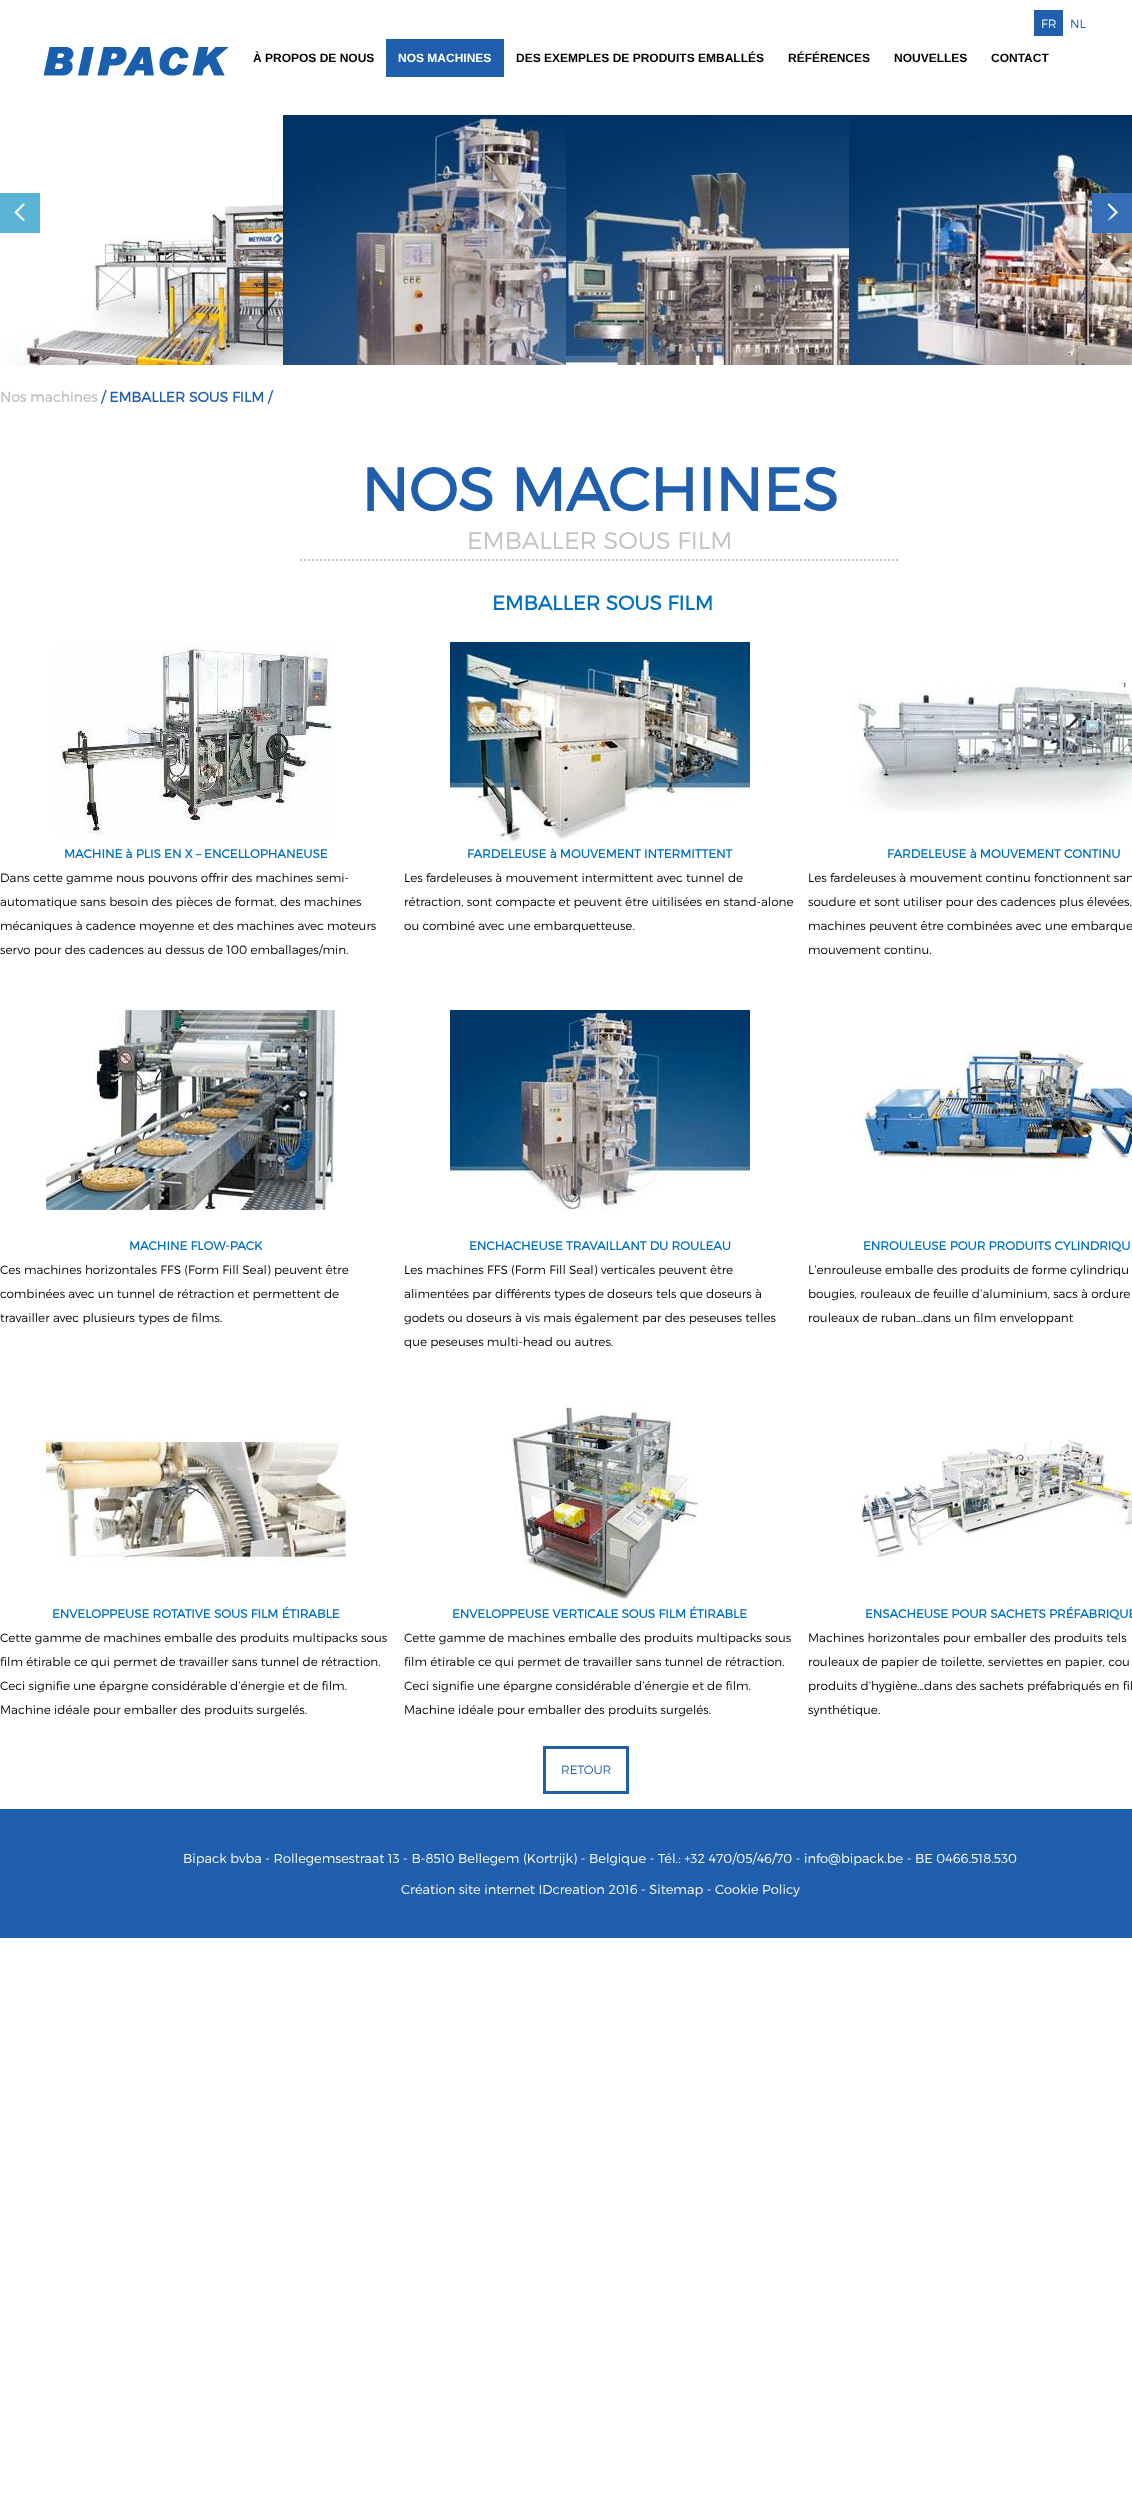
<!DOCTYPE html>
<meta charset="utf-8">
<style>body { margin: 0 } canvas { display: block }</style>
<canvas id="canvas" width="1132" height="2495"></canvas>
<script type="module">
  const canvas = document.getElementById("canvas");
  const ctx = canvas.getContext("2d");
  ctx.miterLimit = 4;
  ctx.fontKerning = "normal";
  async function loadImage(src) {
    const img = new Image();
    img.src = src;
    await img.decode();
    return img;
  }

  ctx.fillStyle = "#ffffff";
  ctx.fillRect(0, 0, 1132, 2495);
  ctx.fillStyle = "#205fae";
  ctx.fillRect(1034, 10, 29, 26);
  ctx.font = "300 12px Montserrat";
  ctx.fillStyle = "#ffffff";
  ctx.fillText("FR", 1041, 28);
  ctx.fillStyle = "#205fae";
  ctx.fillText("NL", 1070, 28);
  ctx.drawImage(await loadImage("img1.png"), 43, 47, 185, 29);
  ctx.font = "bold 12px Liberation Sans";
  ctx.fillStyle = "#000000";
  ctx.fillText("À PROPOS DE NOUS", 253, 62);
  ctx.fillStyle = "#205fae";
  ctx.fillRect(386, 39, 118, 38);
  ctx.fillStyle = "#ffffff";
  ctx.fillText("NOS MACHINES", 398, 62);
  ctx.fillStyle = "#000000";
  ctx.fillText("DES EXEMPLES DE PRODUITS EMBALLÉS", 516, 62);
  ctx.fillText("RÉFÉRENCES", 788, 62);
  ctx.fillText("NOUVELLES", 894, 62);
  ctx.fillText("CONTACT", 991, 62);
  ctx.drawImage(await loadImage("img2.png"), 0, 203, 283, 162);
  ctx.drawImage(await loadImage("img3.png"), 283, 115, 283, 250);
  ctx.drawImage(await loadImage("img4.png"), 566, 115, 283, 250);
  ctx.drawImage(await loadImage("img5.png"), 849, 115, 283, 250);
  ctx.drawImage(await loadImage("img6.png"), 0, 193, 40, 40);
  ctx.drawImage(await loadImage("img7.png"), 1092, 193, 40, 40);
  ctx.font = "bold 14px Montserrat";
  ctx.fillStyle = "#c1c1c1";
  ctx.fillText("Nos machines", 0, 402);
  ctx.fillStyle = "#205fae";
  ctx.fillText("/ EMBALLER SOUS FILM /", 101, 402);
  ctx.font = "bold 60px Montserrat";
  ctx.fillText("NOS MACHINES", 361, 511);
  ctx.beginPath();
  ctx.moveTo(300, 560);
  ctx.lineTo(900, 560);
  ctx.strokeStyle = "#c1c1c1";
  ctx.lineWidth = 2;
  ctx.setLineDash([2, 2]);
  ctx.stroke();
  ctx.font = "300 24px Montserrat";
  ctx.fillStyle = "#c1c1c1";
  ctx.fillText("EMBALLER SOUS FILM", 467, 549);
  ctx.font = "bold 20px Montserrat";
  ctx.fillStyle = "#0070c0";
  ctx.fillText("EMBALLER SOUS FILM", 492, 610);
  ctx.drawImage(await loadImage("img8.png"), 54, 642, 280, 194);
  ctx.drawImage(await loadImage("img9.png"), 450, 642, 300, 200);
  ctx.drawImage(await loadImage("img10.png"), 854, 682, 278, 130);
  ctx.font = "bold 12px Montserrat";
  ctx.fillText("MACHINE à PLIS EN X – ENCELLOPHANEUSE", 64, 858);
  ctx.fillText("FARDELEUSE à MOUVEMENT INTERMITTENT", 467, 858);
  ctx.fillText("FARDELEUSE à MOUVEMENT CONTINU", 887, 858);
  ctx.font = "300 12px Montserrat";
  ctx.fillStyle = "#000000";
  ctx.fillText("Dans cette gamme nous pouvons offrir des machines semi-", 0, 882);
  ctx.fillText("automatique sans besoin des pièces de format, des machines", 0, 906);
  ctx.fillText("mécaniques à cadence moyenne et des machines avec moteurs", 0, 930);
  ctx.fillText("servo pour des cadences au dessus de 100 emballages/min.", 0, 954);
  ctx.fillText("Les fardeleuses à mouvement intermittent avec tunnel de", 404, 882);
  ctx.fillText("rétraction, sont compacte et peuvent être uitilisées en stand-alone", 404, 906);
  ctx.fillText("ou combiné avec une embarquetteuse.", 404, 930);
  ctx.fillText("Les fardeleuses à mouvement continu fonctionnent san", 808, 882);
  ctx.fillText("soudure et sont utiliser pour des cadences plus élevées.", 808, 906);
  ctx.fillText("machines peuvent être combinées avec une embarque", 808, 930);
  ctx.fillText("mouvement continu.", 808, 954);
  ctx.drawImage(await loadImage("img11.png"), 46, 1010, 292, 200);
  ctx.drawImage(await loadImage("img12.png"), 450, 1010, 300, 200);
  ctx.drawImage(await loadImage("img13.png"), 854, 1042, 278, 128);
  ctx.font = "bold 12px Montserrat";
  ctx.fillStyle = "#0070c0";
  ctx.fillText("MACHINE FLOW-PACK", 129, 1250);
  ctx.fillText("ENCHACHEUSE TRAVAILLANT DU ROULEAU", 469, 1250);
  ctx.fillText("ENROULEUSE POUR PRODUITS CYLINDRIQU", 863, 1250);
  ctx.font = "300 12px Montserrat";
  ctx.fillStyle = "#000000";
  ctx.fillText("Ces machines horizontales FFS (Form Fill Seal) peuvent être", 0, 1274);
  ctx.fillText("combinées avec un tunnel de rétraction et permettent de", 0, 1298);
  ctx.fillText("travailler avec plusieurs types de films.", 0, 1322);
  ctx.fillText("Les machines FFS (Form Fill Seal) verticales peuvent être", 404, 1274);
  ctx.fillText("alimentées par différents types de doseurs tels que doseurs à", 404, 1298);
  ctx.fillText("godets ou doseurs à vis mais également par des peseuses telles", 404, 1322);
  ctx.fillText("que peseuses multi-head ou autres.", 404, 1346);
  ctx.fillText("L’enrouleuse emballe des produits de forme cylindriqu", 808, 1274);
  ctx.fillText("bougies, rouleaux de feuille d’aluminium, sacs à ordure", 808, 1298);
  ctx.fillText("rouleaux de ruban…dans un film enveloppant", 808, 1322);
  ctx.drawImage(await loadImage("img14.png"), 46, 1434, 300, 128);
  ctx.drawImage(await loadImage("img15.png"), 506, 1402, 192, 200);
  ctx.drawImage(await loadImage("img16.png"), 854, 1439, 278, 123);
  ctx.font = "bold 12px Montserrat";
  ctx.fillStyle = "#0070c0";
  ctx.fillText("ENVELOPPEUSE ROTATIVE SOUS FILM ÉTIRABLE", 52, 1618);
  ctx.fillText("ENVELOPPEUSE VERTICALE SOUS FILM ÉTIRABLE", 452, 1618);
  ctx.fillText("ENSACHEUSE POUR SACHETS PRÉFABRIQUÉ", 865, 1618);
  ctx.font = "300 12px Montserrat";
  ctx.fillStyle = "#000000";
  ctx.fillText("Cette gamme de machines emballe des produits multipacks sous", 0, 1642);
  ctx.fillText("film étirable ce qui permet de travailler sans tunnel de rétraction.", 0, 1666);
  ctx.fillText("Ceci signifie une épargne considérable d’énergie et de film.", 0, 1690);
  ctx.fillText("Machine idéale pour emballer des produits surgelés.", 0, 1714);
  ctx.fillText("Cette gamme de machines emballe des produits multipacks sous", 404, 1642);
  ctx.fillText("film étirable ce qui permet de travailler sans tunnel de rétraction.", 404, 1666);
  ctx.fillText("Ceci signifie une épargne considérable d’énergie et de film.", 404, 1690);
  ctx.fillText("Machine idéale pour emballer des produits surgelés.", 404, 1714);
  ctx.fillText("Machines horizontales pour emballer des produits tels", 808, 1642);
  ctx.fillText("rouleaux de papier de toilette, serviettes en papier, cou", 808, 1666);
  ctx.fillText("produits d’hygiène…dans des sachets préfabriqués en fil", 808, 1690);
  ctx.fillText("synthétique.", 808, 1714);
  ctx.strokeStyle = "#205fae";
  ctx.lineWidth = 3;
  ctx.setLineDash([]);
  ctx.strokeRect(544.5, 1747.5, 83, 45);
  ctx.fillStyle = "#205fae";
  ctx.fillText("RETOUR", 561, 1774);
  ctx.fillRect(0, 1809, 1132, 129);
  ctx.font = "300 13px Montserrat";
  ctx.fillStyle = "#ffffff";
  ctx.fillText("Bipack bvba - Rollegemsestraat 13 - B-8510 Bellegem (Kortrijk) - Belgique - Tél.: +32 470/05/46/70 - info@bipack.be - BE 0466.518.530", 183, 1863);
  ctx.fillText("Création site internet IDcreation 2016 - Sitemap - Cookie Policy", 401, 1894);
</script>
